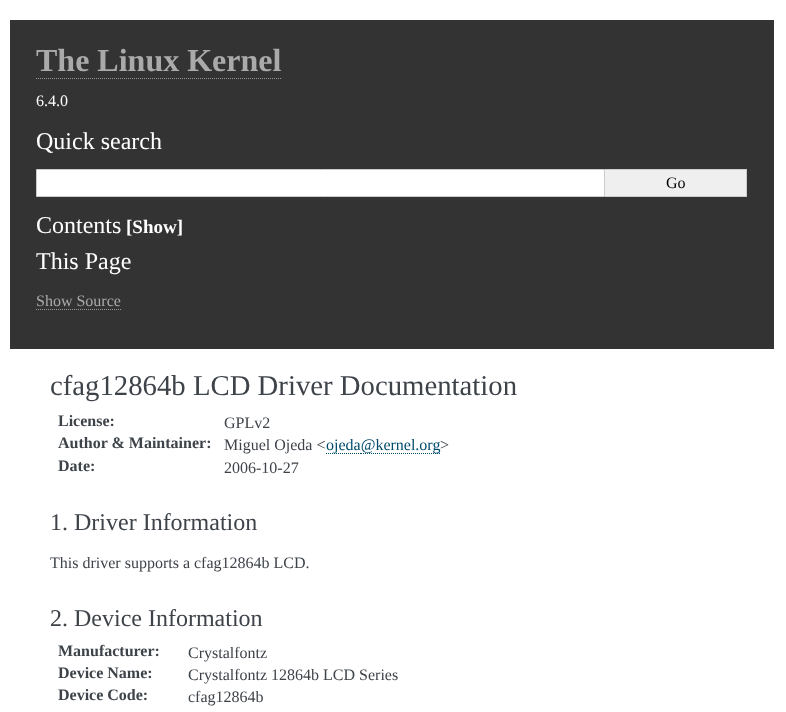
<!DOCTYPE html>
<meta charset="utf-8">
<style>body { margin: 0 } canvas { display: block }</style>
<canvas id="canvas" width="786" height="712"></canvas>
<script type="module">
  const canvas = document.getElementById("canvas");
  const ctx = canvas.getContext("2d");
  ctx.miterLimit = 4;
  ctx.fontKerning = "normal";

  ctx.fillStyle = "#ffffff";
  ctx.fillRect(0, 0, 786, 712);
  ctx.fillStyle = "#333333";
  ctx.fillRect(10, 20, 764, 329);
  ctx.font = "bold 32px Liberation Serif";
  ctx.fillStyle = "#aaaaaa";
  ctx.fillText("The Linux Kernel", 36, 71);
  ctx.beginPath();
  ctx.moveTo(36, 78.5);
  ctx.lineTo(282, 78.5);
  ctx.strokeStyle = "#999999";
  ctx.setLineDash([1, 1]);
  ctx.stroke();
  ctx.font = "16px Liberation Serif";
  ctx.fillStyle = "#ffffff";
  ctx.fillText("6.4.0", 36, 106);
  ctx.font = "24px Liberation Serif";
  ctx.fillText("Quick search", 36, 149);
  ctx.beginPath();
  ctx.rect(36.5, 169.5, 568, 27);
  ctx.fill();
  ctx.strokeStyle = "#cccccc";
  ctx.setLineDash([]);
  ctx.stroke();
  ctx.fillStyle = "#efefef";
  ctx.fillRect(605, 170, 141, 26);
  ctx.fillStyle = "#cccccc";
  ctx.fillRect(605, 169, 142, 1);
  ctx.fillRect(746, 169, 1, 28);
  ctx.fillRect(605, 196, 142, 1);
  ctx.font = "16px Liberation Serif";
  ctx.fillStyle = "#000000";
  ctx.fillText("Go", 666, 188);
  ctx.font = "24px Liberation Serif";
  ctx.fillStyle = "#ffffff";
  ctx.fillText("Contents", 36, 233);
  ctx.font = "bold 19px Liberation Serif";
  ctx.fillText("[Show]", 126, 233);
  ctx.font = "24px Liberation Serif";
  ctx.fillText("This Page", 36, 269);
  ctx.font = "16px Liberation Serif";
  ctx.fillStyle = "#aaaaaa";
  ctx.fillText("Show Source", 36, 306);
  ctx.beginPath();
  ctx.moveTo(36, 309.5);
  ctx.lineTo(121, 309.5);
  ctx.strokeStyle = "#999999";
  ctx.setLineDash([1, 1]);
  ctx.stroke();
  ctx.font = "28.75px Liberation Serif";
  ctx.fillStyle = "#3e4349";
  ctx.fillText("cfag12864b LCD Driver Documentation", 50, 395);
  ctx.font = "bold 16px Liberation Serif";
  ctx.fillText("License:", 58, 426);
  ctx.font = "16px Liberation Serif";
  ctx.fillText("GPLv2", 224, 428);
  ctx.font = "bold 16px Liberation Serif";
  ctx.fillText("Author & Maintainer:", 58, 448);
  ctx.font = "16px Liberation Serif";
  ctx.fillText("Miguel Ojeda <", 224, 450);
  ctx.beginPath();
  ctx.moveTo(326, 453.5);
  ctx.lineTo(361, 453.5);
  ctx.moveTo(361, 453.5);
  ctx.lineTo(375, 453.5);
  ctx.strokeStyle = "#004b6b";
  ctx.stroke();
  ctx.beginPath();
  ctx.moveTo(375, 453.5);
  ctx.lineTo(415, 453.5);
  ctx.stroke();
  ctx.beginPath();
  ctx.moveTo(415, 453.5);
  ctx.lineTo(416, 453.5);
  ctx.moveTo(417, 453.5);
  ctx.lineTo(418, 453.5);
  ctx.setLineDash([]);
  ctx.stroke();
  ctx.beginPath();
  ctx.moveTo(419, 453.5);
  ctx.lineTo(440, 453.5);
  ctx.setLineDash([1, 1]);
  ctx.stroke();
  ctx.fillStyle = "#004b6b";
  ctx.fillText("ojeda@kernel.org", 326, 450);
  ctx.fillStyle = "#3e4349";
  ctx.fillText(">", 440, 450);
  ctx.font = "bold 16px Liberation Serif";
  ctx.fillText("Date:", 58, 471);
  ctx.font = "16px Liberation Serif";
  ctx.fillText("2006-10-27", 224, 473);
  ctx.font = "24px Liberation Serif";
  ctx.fillText("1. Driver Information", 50, 530);
  ctx.font = "16px Liberation Serif";
  ctx.fillText("This driver supports a cfag12864b LCD.", 50, 568);
  ctx.font = "24px Liberation Serif";
  ctx.fillText("2. Device Information", 50, 626);
  ctx.font = "bold 16px Liberation Serif";
  ctx.fillText("Manufacturer:", 58, 656);
  ctx.font = "16px Liberation Serif";
  ctx.fillText("Crystalfontz", 188, 658);
  ctx.font = "bold 16px Liberation Serif";
  ctx.fillText("Device Name:", 58, 678);
  ctx.font = "16px Liberation Serif";
  ctx.fillText("Crystalfontz 12864b LCD Series", 188, 680);
  ctx.font = "bold 16px Liberation Serif";
  ctx.fillText("Device Code:", 58, 700);
  ctx.font = "16px Liberation Serif";
  ctx.fillText("cfag12864b", 188, 702);
</script>
